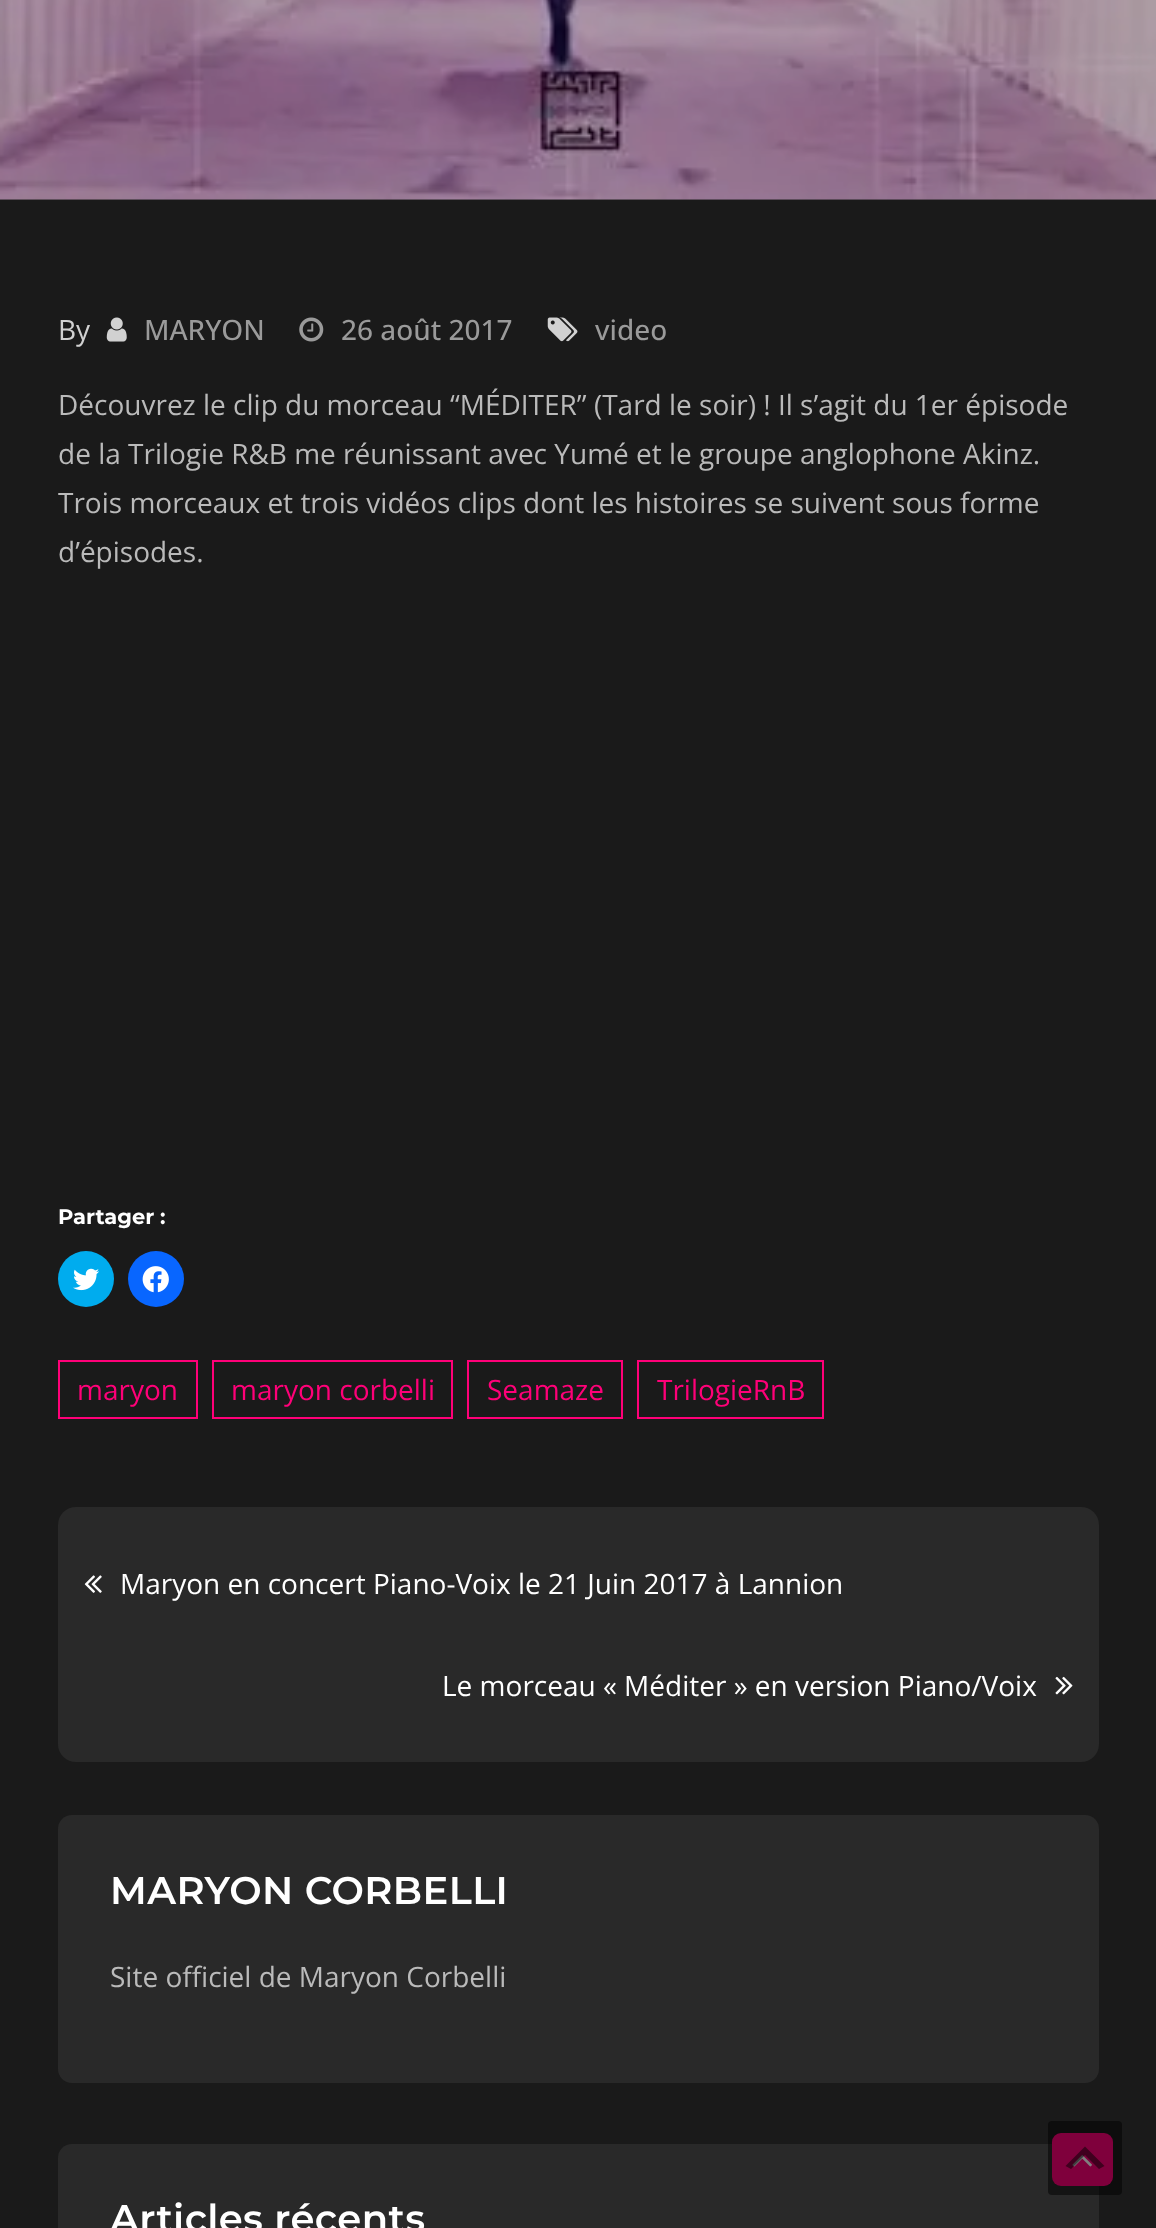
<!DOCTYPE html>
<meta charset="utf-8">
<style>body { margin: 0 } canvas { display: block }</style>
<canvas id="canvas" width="1156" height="2228"></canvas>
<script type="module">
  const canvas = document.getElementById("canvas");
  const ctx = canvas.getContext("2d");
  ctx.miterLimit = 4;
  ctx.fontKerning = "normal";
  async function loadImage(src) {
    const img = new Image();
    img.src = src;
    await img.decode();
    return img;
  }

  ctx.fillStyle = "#1a1a1a";
  ctx.fillRect(0, 0, 1156, 2228);
  ctx.fillStyle = "#242424";
  ctx.fillRect(0, 199, 1156, 1);
  ctx.drawImage(await loadImage("img1.png"), 0, 0, 1156, 200);
  ctx.font = "28px Open Sans";
  ctx.fillStyle = "#d1d1d1";
  ctx.fillText("By", 58, 340);
  ctx.drawImage(await loadImage("img2.png"), 106, 317, 21, 25);
  ctx.font = "500 28px Open Sans";
  ctx.fillStyle = "#9a9a9a";
  ctx.fillText("MARYON", 144, 340);
  ctx.drawImage(await loadImage("img3.png"), 299, 317, 25, 25);
  ctx.fillText("26 août 2017", 341, 340);
  ctx.drawImage(await loadImage("img4.png"), 547, 317, 31, 25);
  ctx.fillText("video", 595, 340);
  ctx.font = "28px Open Sans";
  ctx.fillStyle = "#bababa";
  ctx.fillText("Découvrez le clip du morceau “MÉDITER” (Tard le soir) ! Il s’agit du 1er épisode", 58, 415);
  ctx.fillText("de la Trilogie R&B me réunissant avec Yumé et le groupe anglophone Akinz.", 58, 464);
  ctx.fillText("Trois morceaux et trois vidéos clips dont les histoires se suivent sous forme", 58, 513);
  ctx.fillText("d’épisodes.", 58, 562);
  ctx.font = "bold 21px Montserrat";
  ctx.fillStyle = "#ffffff";
  ctx.fillText("Partager :", 58, 1224);
  ctx.fillStyle = "#00acee";
  ctx.beginPath();
  ctx.arc(86, 1279, 28, 0, Math.PI * 2);
  ctx.fill();
  ctx.drawImage(await loadImage("img5.png"), 73, 1268, 26, 23);
  ctx.fillStyle = "#0866ff";
  ctx.beginPath();
  ctx.arc(156, 1279, 28, 0, Math.PI * 2);
  ctx.fill();
  ctx.drawImage(await loadImage("img6.png"), 142, 1266, 27, 27);
  ctx.strokeStyle = "#ff0078";
  ctx.lineWidth = 2;
  ctx.strokeRect(59, 1361, 138, 57);
  ctx.font = "28px Open Sans";
  ctx.fillStyle = "#ff0078";
  ctx.fillText("maryon", 77, 1400);
  ctx.strokeRect(213, 1361, 239, 57);
  ctx.fillText("maryon corbelli", 231, 1400);
  ctx.strokeRect(468, 1361, 154, 57);
  ctx.fillText("Seamaze", 487, 1400);
  ctx.strokeRect(638, 1361, 185, 57);
  ctx.fillText("TrilogieRnB", 657, 1400);
  ctx.fillStyle = "#292929";
  ctx.beginPath();
  ctx.roundRect(58, 1507, 1041, 255, 18);
  ctx.fill();
  ctx.drawImage(await loadImage("img7.png"), 84, 1575, 18, 18);
  ctx.fillStyle = "#ffffff";
  ctx.fillText("Maryon en concert Piano-Voix le 21 Juin 2017 à Lannion", 120, 1594);
  ctx.fillText("Le morceau « Méditer » en version Piano/Voix", 442, 1696);
  ctx.drawImage(await loadImage("img8.png"), 1055, 1676, 18, 19);
  ctx.fillStyle = "#292929";
  ctx.beginPath();
  ctx.roundRect(58, 1815, 1041, 268, 14);
  ctx.fill();
  ctx.letterSpacing = "0.4px";
  ctx.font = "600 38.5px Montserrat";
  ctx.fillStyle = "#ffffff";
  ctx.fillText("MARYON CORBELLI", 110, 1904);
  ctx.letterSpacing = "0px";
  ctx.font = "28px Open Sans";
  ctx.fillStyle = "#bababa";
  ctx.fillText("Site officiel de Maryon Corbelli", 110, 1987);
  ctx.fillStyle = "#292929";
  ctx.beginPath();
  ctx.roundRect(58, 2144, 1041, 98, 14);
  ctx.fill();
  ctx.letterSpacing = "0.4px";
  ctx.font = "600 38.5px Montserrat";
  ctx.fillStyle = "#ffffff";
  ctx.fillText("Articles récents", 110, 2232);
  ctx.fillStyle = "#ff0078";
  ctx.beginPath();
  ctx.roundRect(1052, 2133, 61, 53, 9);
  ctx.fill();
  ctx.drawImage(await loadImage("img9.png"), 1072, 2155, 20, 12);
  ctx.fillStyle = "rgba(0, 0, 0, 0.5)";
  ctx.beginPath();
  ctx.roundRect(1048, 2121, 74, 74, 4);
  ctx.fill();
  ctx.beginPath();
  ctx.moveTo(1099, 2169);
  ctx.lineTo(1085, 2155);
  ctx.lineTo(1071, 2169);
  ctx.lineTo(1065.5, 2166);
  ctx.lineTo(1085, 2146.5);
  ctx.lineTo(1104.5, 2166);
  ctx.closePath();
  ctx.fill();
</script>
